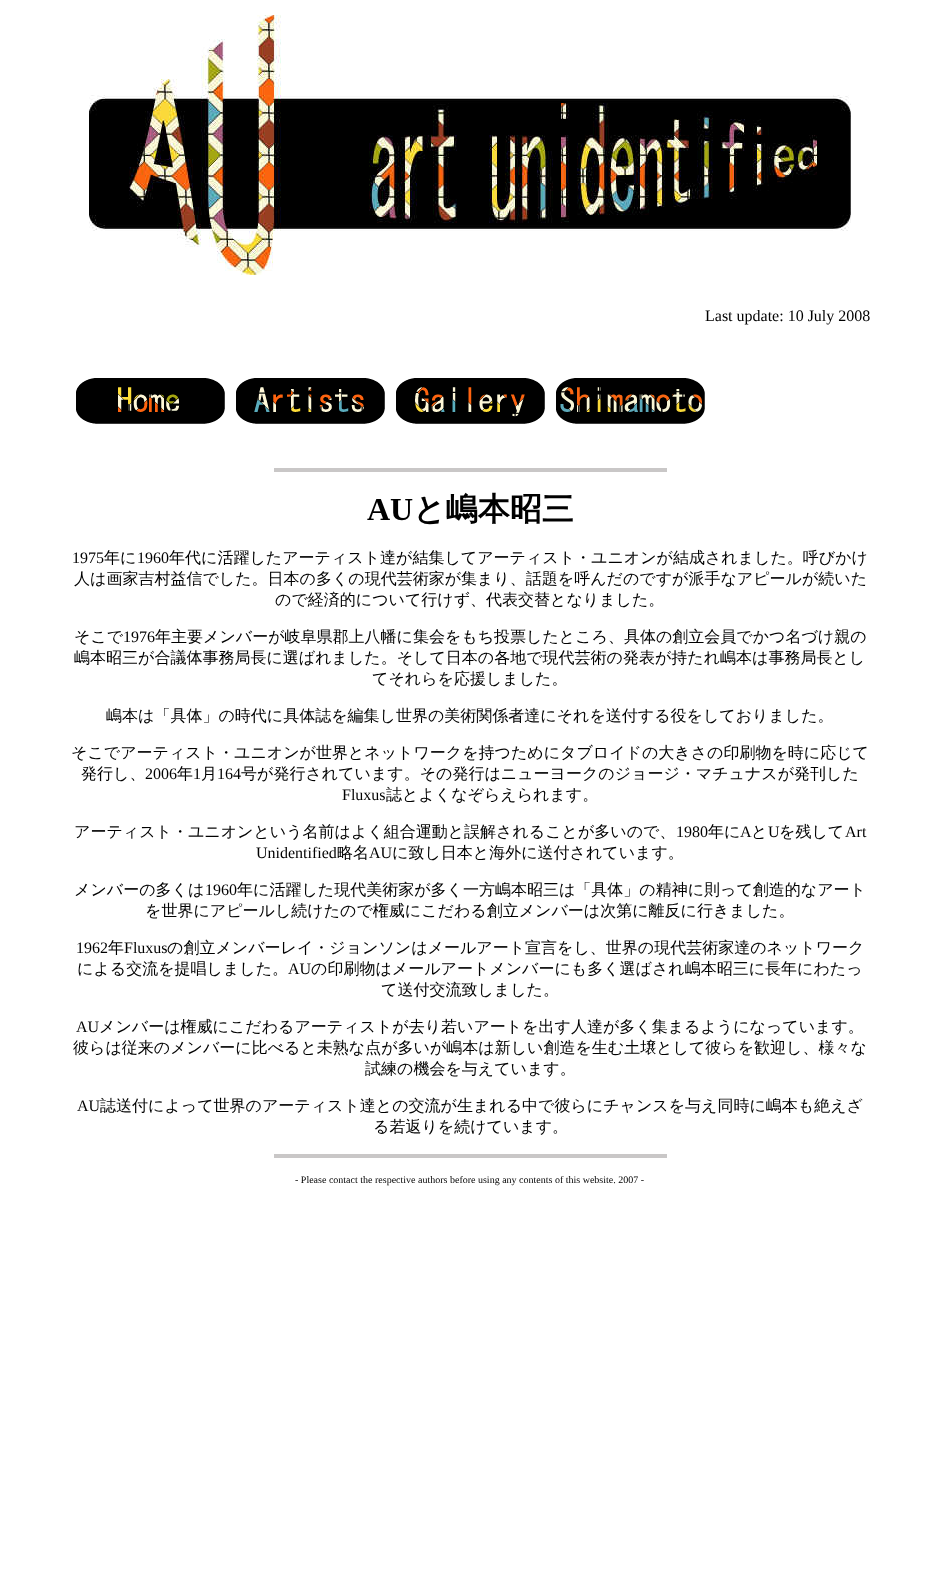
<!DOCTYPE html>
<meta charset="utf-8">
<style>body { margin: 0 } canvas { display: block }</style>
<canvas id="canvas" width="940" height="1596"></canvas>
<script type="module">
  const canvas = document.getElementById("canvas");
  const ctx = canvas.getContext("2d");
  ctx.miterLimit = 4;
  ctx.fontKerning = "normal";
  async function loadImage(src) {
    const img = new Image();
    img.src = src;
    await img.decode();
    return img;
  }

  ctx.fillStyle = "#ffffff";
  ctx.fillRect(0, 0, 940, 1596);
  ctx.drawImage(await loadImage("img1.png"), 89, 15, 762, 260);
  ctx.font = "16px Liberation Serif";
  ctx.fillStyle = "#000000";
  ctx.fillText("Last update: 10 July 2008", 705, 321);
  ctx.drawImage(await loadImage("img2.png"), 76, 378, 149, 46);
  ctx.drawImage(await loadImage("img3.png"), 236, 378, 149, 46);
  ctx.drawImage(await loadImage("img4.png"), 396, 378, 149, 46);
  ctx.drawImage(await loadImage("img5.png"), 556, 378, 149, 46);
  ctx.fillStyle = "#c9c7c7";
  ctx.fillRect(274, 468, 393, 4);
  ctx.font = "bold 32px Liberation Serif";
  ctx.fillStyle = "#000000";
  ctx.fillText("AU", 367, 520);
  ctx.font = "bold 32px WenQuanYi Zen Hei";
  ctx.fillText("と嶋本昭三", 413, 520);
  ctx.font = "16px Liberation Serif";
  ctx.fillText("1975", 72, 563);
  ctx.font = "500 16px WenQuanYi Zen Hei";
  ctx.fillText("年に", 104, 563);
  ctx.font = "16px Liberation Serif";
  ctx.fillText("1960", 137, 563);
  ctx.font = "500 16px WenQuanYi Zen Hei";
  ctx.fillText("年代に活躍したアーティスト達が結集してアーティスト・ユニオンが結成されました。呼びかけ", 169, 563);
  ctx.fillText("人は画家吉村益信でした。日本の多くの現代芸術家が集まり、話題を呼んだのですが派手なアピールが続いた", 74, 584);
  ctx.fillText("ので経済的について行けず、代表交替となりました。", 275, 605);
  ctx.fillText("そこで", 74, 642);
  ctx.font = "16px Liberation Serif";
  ctx.fillText("1976", 123, 642);
  ctx.font = "500 16px WenQuanYi Zen Hei";
  ctx.fillText("年主要メンバーが岐阜県郡上八幡に集会をもち投票したところ、具体の創立会員でかつ名づけ親の", 155, 642);
  ctx.fillText("嶋本昭三が合議体事務局長に選ばれました。そして日本の各地で現代芸術の発表が持たれ嶋本は事務局長とし", 74, 663);
  ctx.fillText("てそれらを応援しました。", 372, 684);
  ctx.fillText("嶋本は「具体」の時代に具体誌を編集し世界の美術関係者達にそれを送付する役をしておりました。", 106, 721);
  ctx.fillText("そこでアーティスト・ユニオンが世界とネットワークを持つためにタブロイドの大きさの印刷物を時に応じて", 71, 758);
  ctx.fillText("発行し、", 81, 779);
  ctx.font = "16px Liberation Serif";
  ctx.fillText("2006", 145, 779);
  ctx.font = "500 16px WenQuanYi Zen Hei";
  ctx.fillText("年", 177, 779);
  ctx.font = "16px Liberation Serif";
  ctx.fillText("1", 193, 779);
  ctx.font = "500 16px WenQuanYi Zen Hei";
  ctx.fillText("月", 201, 779);
  ctx.font = "16px Liberation Serif";
  ctx.fillText("164", 217, 779);
  ctx.font = "500 16px WenQuanYi Zen Hei";
  ctx.fillText("号が発行されています。その発行はニューヨークのジョージ・マチュナスが発刊した", 241, 779);
  ctx.font = "16px Liberation Serif";
  ctx.fillText("Fluxus", 342, 800);
  ctx.font = "500 16px WenQuanYi Zen Hei";
  ctx.fillText("誌とよくなぞらえられます。", 386, 800);
  ctx.fillText("アーティスト・ユニオンという名前はよく組合運動と誤解されることが多いので、", 74, 837);
  ctx.font = "16px Liberation Serif";
  ctx.fillText("1980", 676, 837);
  ctx.font = "500 16px WenQuanYi Zen Hei";
  ctx.fillText("年に", 708, 837);
  ctx.font = "16px Liberation Serif";
  ctx.fillText("A", 740, 837);
  ctx.font = "500 16px WenQuanYi Zen Hei";
  ctx.fillText("と", 751, 837);
  ctx.font = "16px Liberation Serif";
  ctx.fillText("U", 768, 837);
  ctx.font = "500 16px WenQuanYi Zen Hei";
  ctx.fillText("を残して", 779, 837);
  ctx.font = "16px Liberation Serif";
  ctx.fillText("Art", 845, 837);
  ctx.fillText("Unidentified", 256, 858);
  ctx.font = "500 16px WenQuanYi Zen Hei";
  ctx.fillText("略名", 337, 858);
  ctx.font = "16px Liberation Serif";
  ctx.fillText("AU", 369, 858);
  ctx.font = "500 16px WenQuanYi Zen Hei";
  ctx.fillText("に致し日本と海外に送付されています。", 392, 858);
  ctx.fillText("メンバーの多くは", 74, 895);
  ctx.font = "16px Liberation Serif";
  ctx.fillText("1960", 205, 895);
  ctx.font = "500 16px WenQuanYi Zen Hei";
  ctx.fillText("年に活躍した現代美術家が多く一方嶋本昭三は「具体」の精神に則って創造的なアート", 237, 895);
  ctx.fillText("を世界にアピールし続けたので権威にこだわる創立メンバーは次第に離反に行きました。", 145, 916);
  ctx.font = "16px Liberation Serif";
  ctx.fillText("1962", 76, 953);
  ctx.font = "500 16px WenQuanYi Zen Hei";
  ctx.fillText("年", 108, 953);
  ctx.font = "16px Liberation Serif";
  ctx.fillText("Fluxus", 124, 953);
  ctx.font = "500 16px WenQuanYi Zen Hei";
  ctx.fillText("の創立メンバーレイ・ジョンソンはメールアート宣言をし、世界の現代芸術家達のネットワーク", 167, 953);
  ctx.fillText("による交流を提唱しました。", 77, 974);
  ctx.font = "16px Liberation Serif";
  ctx.fillText("AU", 288, 974);
  ctx.font = "500 16px WenQuanYi Zen Hei";
  ctx.fillText("の印刷物はメールアートメンバーにも多く選ばされ嶋本昭三に長年にわたっ", 311, 974);
  ctx.fillText("て送付交流致しました。", 381, 995);
  ctx.font = "16px Liberation Serif";
  ctx.fillText("AU", 76, 1032);
  ctx.font = "500 16px WenQuanYi Zen Hei";
  ctx.fillText("メンバーは権威にこだわるアーティストが去り若いアートを出す人達が多く集まるようになっています。", 99, 1032);
  ctx.fillText("彼らは従来のメンバーに比べると未熟な点が多いが嶋本は新しい創造を生む土壌として彼らを歓迎し、様々な", 73, 1053);
  ctx.fillText("試練の機会を与えています。", 365, 1074);
  ctx.font = "16px Liberation Serif";
  ctx.fillText("AU", 77, 1111);
  ctx.font = "500 16px WenQuanYi Zen Hei";
  ctx.fillText("誌送付によって世界のアーティスト達との交流が生まれる中で彼らにチャンスを与え同時に嶋本も絶えざ", 100, 1111);
  ctx.fillText("る若返りを続けています。", 373, 1132);
  ctx.fillStyle = "#c9c7c7";
  ctx.fillRect(274, 1154, 393, 4);
  ctx.font = "10px Liberation Serif";
  ctx.fillStyle = "#000000";
  ctx.fillText("- Please contact the respective authors before using any contents of this website. 2007 -", 295, 1183);
</script>
